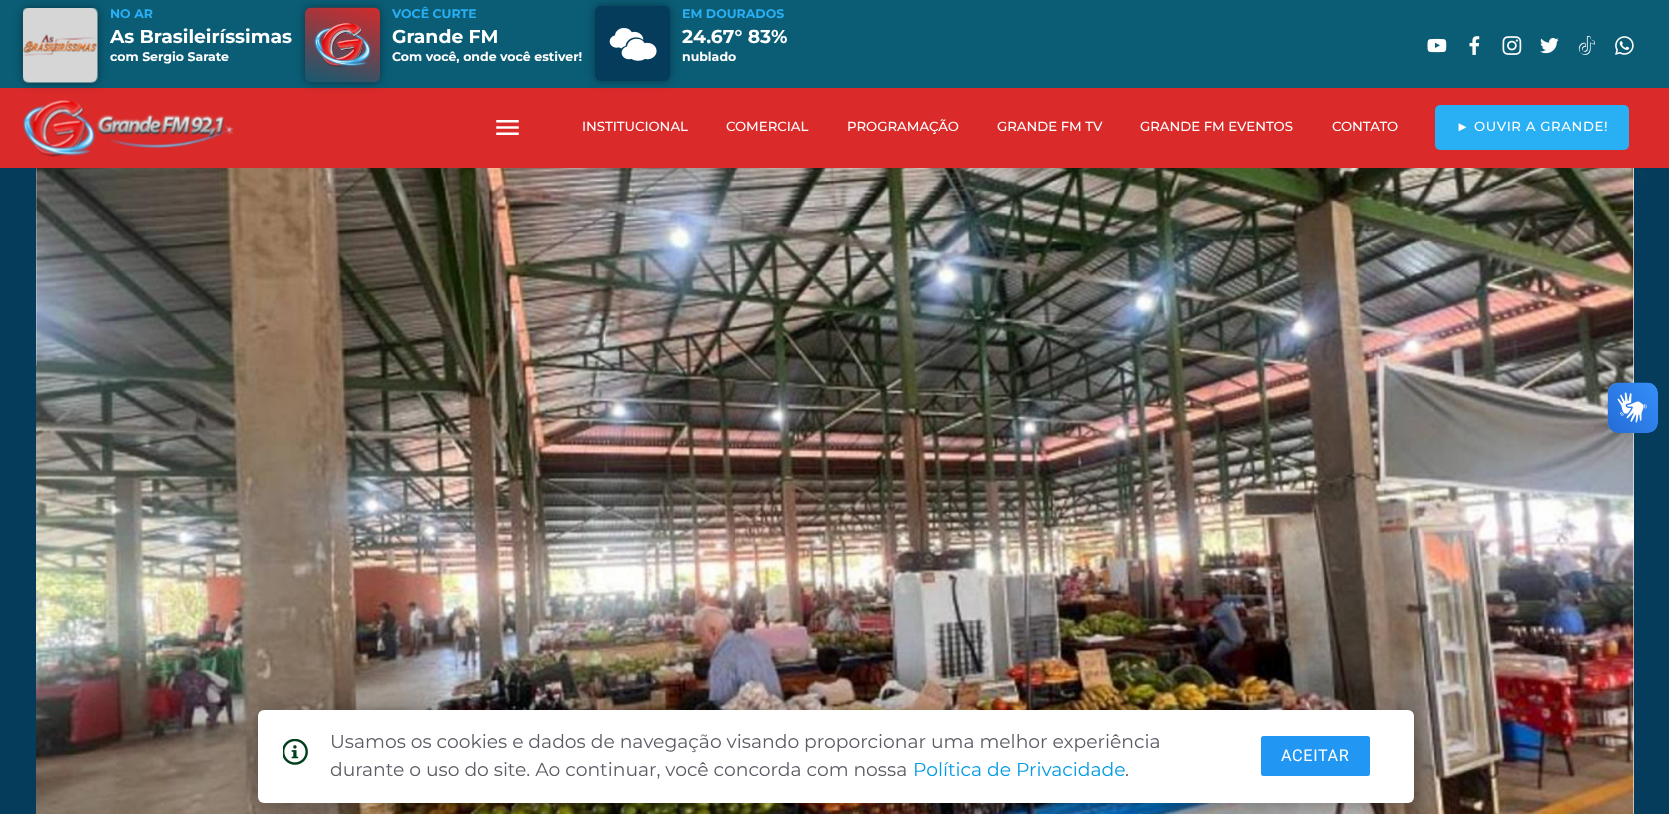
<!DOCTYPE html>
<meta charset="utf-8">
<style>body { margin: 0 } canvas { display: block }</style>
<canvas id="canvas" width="1669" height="814"></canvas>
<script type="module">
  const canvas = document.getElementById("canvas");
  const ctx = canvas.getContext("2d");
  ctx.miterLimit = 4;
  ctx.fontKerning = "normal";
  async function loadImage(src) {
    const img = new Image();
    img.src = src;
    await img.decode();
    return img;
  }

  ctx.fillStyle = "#053c5b";
  ctx.fillRect(0, 0, 1669, 814);
  ctx.drawImage(await loadImage("img1.png"), 1634, 170, 33, 15);
  ctx.fillStyle = "#0b5d76";
  ctx.fillRect(0, 0, 1669, 88);
  ctx.fillStyle = "#da2a2a";
  ctx.fillRect(0, 88, 1669, 80);
  ctx.fillStyle = "rgba(3, 3, 3, 0.4)";
  ctx.filter = "blur(5px)";
  ctx.beginPath();
  ctx.roundRect(23, 8, 75, 75, 6);
  ctx.fill();
  ctx.filter = "none";
  ctx.drawImage(await loadImage("img2.png"), 23, 8, 75, 75);
  ctx.font = "bold 12.5px Montserrat";
  ctx.fillStyle = "#29aff3";
  ctx.fillText("NO AR", 110, 18);
  ctx.font = "bold 18.75px Montserrat";
  ctx.fillStyle = "#ffffff";
  ctx.fillText("As Brasileiríssimas", 110, 43);
  ctx.font = "bold 12.5px Montserrat";
  ctx.fillText("com Sergio Sarate", 110, 61);
  ctx.fillStyle = "rgba(3, 3, 3, 0.4)";
  ctx.filter = "blur(5px)";
  ctx.beginPath();
  ctx.roundRect(305, 8, 75, 75, 6);
  ctx.fill();
  ctx.filter = "none";
  ctx.drawImage(await loadImage("img3.png"), 305, 7, 75, 76);
  ctx.fillStyle = "#29aff3";
  ctx.fillText("VOCÊ CURTE", 392, 18);
  ctx.font = "bold 18.75px Montserrat";
  ctx.fillStyle = "#ffffff";
  ctx.fillText("Grande FM", 392, 43);
  ctx.font = "bold 12.5px Montserrat";
  ctx.fillText("Com você, onde você estiver!", 392, 61);
  ctx.fillStyle = "rgba(3, 3, 3, 0.4)";
  ctx.filter = "blur(5px)";
  ctx.beginPath();
  ctx.roundRect(595, 6, 75, 75, 6);
  ctx.fill();
  ctx.filter = "none";
  ctx.fillStyle = "#053c5b";
  ctx.beginPath();
  ctx.roundRect(595, 6, 75, 75, 6);
  ctx.fill();
  ctx.drawImage(await loadImage("img4.png"), 609, 28, 48, 33);
  ctx.fillStyle = "#29aff3";
  ctx.fillText("EM DOURADOS", 682, 18);
  ctx.font = "bold 18.75px Montserrat";
  ctx.fillStyle = "#ffffff";
  ctx.fillText("24.67° 83%", 682, 43);
  ctx.font = "bold 12.5px Montserrat";
  ctx.fillText("nublado", 682, 61);
  ctx.drawImage(await loadImage("img5.png"), 1427, 38, 20, 15);
  ctx.drawImage(await loadImage("img6.png"), 1469, 36, 11, 19);
  ctx.drawImage(await loadImage("img7.png"), 1502, 36, 20, 19);
  ctx.drawImage(await loadImage("img8.png"), 1540, 37, 19, 17);
  ctx.drawImage(await loadImage("img9.png"), 1578, 36, 17, 19);
  ctx.drawImage(await loadImage("img10.png"), 1615, 36, 19, 19);
  ctx.drawImage(await loadImage("img11.png"), 23, 100, 212, 57);
  ctx.drawImage(await loadImage("img12.png"), 496, 120, 23, 15);
  ctx.font = "500 13.25px Montserrat";
  ctx.fillText("INSTITUCIONAL", 582, 131);
  ctx.fillText("COMERCIAL", 726, 131);
  ctx.fillText("PROGRAMAÇÃO", 847, 131);
  ctx.fillText("GRANDE FM TV", 997, 131);
  ctx.fillText("GRANDE FM EVENTOS", 1140, 131);
  ctx.fillText("CONTATO", 1332, 131);
  ctx.fillStyle = "#29aff3";
  ctx.beginPath();
  ctx.roundRect(1435, 105, 194, 45, 5);
  ctx.fill();
  ctx.letterSpacing = "0.6px";
  ctx.font = "13.25px Liberation Serif";
  ctx.fillStyle = "#ffffff";
  ctx.fillText("►", 1456, 131);
  ctx.font = "500 13.25px Montserrat";
  ctx.fillText("OUVIR A GRANDE!", 1474, 131);
  ctx.fillRect(36, 168, 1598, 646);
  ctx.drawImage(await loadImage("img13.png"), 36, 168, 1598, 646);
  ctx.drawImage(await loadImage("img14.png"), 1607, 382, 51, 51);
  ctx.drawImage(await loadImage("img15.png"), 1608, 383, 50, 50);
  ctx.fillStyle = "rgba(0, 0, 0, 0.41)";
  ctx.filter = "blur(15.5px)";
  ctx.beginPath();
  ctx.roundRect(258, 714, 1156, 92, 6);
  ctx.fill();
  ctx.filter = "none";
  ctx.fillStyle = "#ffffff";
  ctx.beginPath();
  ctx.roundRect(258, 710, 1156, 93, 6);
  ctx.fill();
  ctx.drawImage(await loadImage("img16.png"), 283, 739, 25, 26);
  ctx.letterSpacing = "0px";
  ctx.font = "18.75px Montserrat";
  ctx.fillStyle = "#5b5c65";
  ctx.fillText("Usamos os cookies e dados de navegação visando proporcionar uma melhor experiência", 330, 748);
  ctx.fillText("durante o uso do site. Ao continuar, você concorda com nossa", 330, 776);
  ctx.fillStyle = "#039be5";
  ctx.fillText("Política de Privacidade", 913, 776);
  ctx.fillStyle = "#5b5c65";
  ctx.fillText(".", 1125, 776);
  ctx.fillStyle = "#2196f3";
  ctx.beginPath();
  ctx.roundRect(1261, 736, 109, 40, 2.5);
  ctx.fill();
  ctx.letterSpacing = "0.6px";
  ctx.font = "16.25px Roboto";
  ctx.fillStyle = "#ffffff";
  ctx.fillText("ACEITAR", 1281, 761);
</script>
